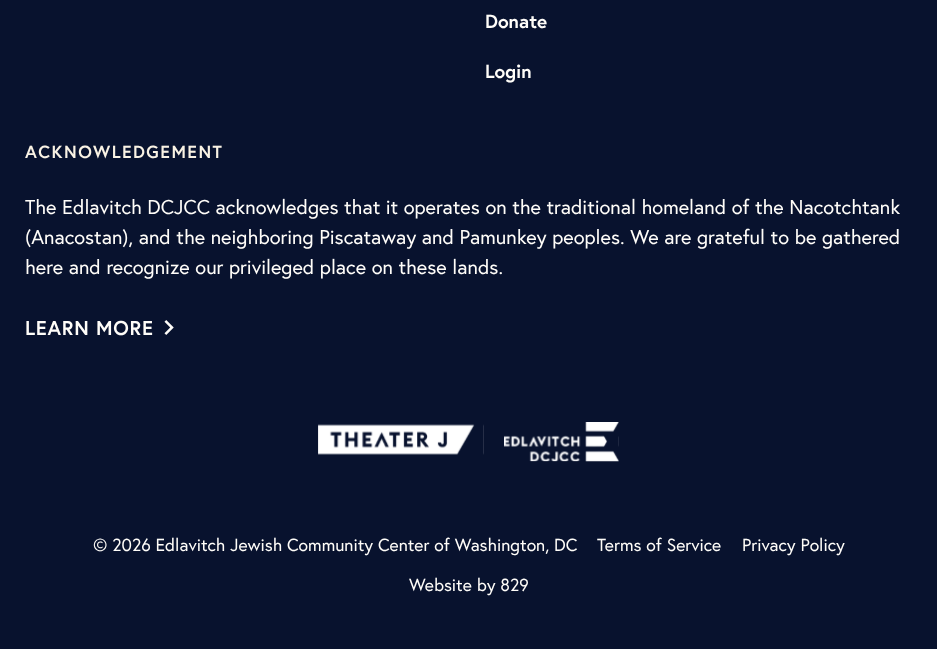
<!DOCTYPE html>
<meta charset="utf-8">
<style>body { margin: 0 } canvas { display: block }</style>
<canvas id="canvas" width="937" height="649"></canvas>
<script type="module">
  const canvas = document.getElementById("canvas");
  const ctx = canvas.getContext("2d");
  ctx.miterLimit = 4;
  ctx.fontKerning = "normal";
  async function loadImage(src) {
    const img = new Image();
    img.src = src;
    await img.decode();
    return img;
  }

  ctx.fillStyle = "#08122e";
  ctx.fillRect(0, 0, 937, 649);
  ctx.font = "bold 19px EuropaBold";
  ctx.fillStyle = "#fffdf9";
  ctx.fillText("Donate", 485, 28);
  ctx.fillText("Login", 485, 78);
  ctx.letterSpacing = "1.5px";
  ctx.font = "bold 17.5px EuropaBold";
  ctx.fillStyle = "#f9f2e4";
  ctx.fillText("ACKNOWLEDGEMENT", 25, 158);
  ctx.letterSpacing = "0px";
  ctx.font = "20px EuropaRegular";
  ctx.fillStyle = "#fffdf9";
  ctx.fillText("The Edlavitch DCJCC acknowledges that it operates on the traditional homeland of the Nacotchtank", 25, 214);
  ctx.fillText("(Anacostan), and the neighboring Piscataway and Pamunkey peoples. We are grateful to be gathered", 25, 244);
  ctx.fillText("here and recognize our privileged place on these lands.", 25, 274);
  ctx.letterSpacing = "0.75px";
  ctx.font = "bold 20px EuropaBold";
  ctx.fillText("LEARN MORE", 25, 335);
  ctx.drawImage(await loadImage("img1.png"), 164, 320, 10, 15);
  ctx.drawImage(await loadImage("img2.png"), 318, 424, 166, 31);
  ctx.drawImage(await loadImage("img3.png"), 504, 422, 115, 40);
  ctx.letterSpacing = "0px";
  ctx.font = "17.5px EuropaRegular";
  ctx.fillText("© 2026 Edlavitch Jewish Community Center of Washington, DC", 93, 551);
  ctx.fillText("Terms of Service", 597, 551);
  ctx.fillText("Privacy Policy", 742, 551);
  ctx.fillText("Website by 829", 409, 591);
</script>
